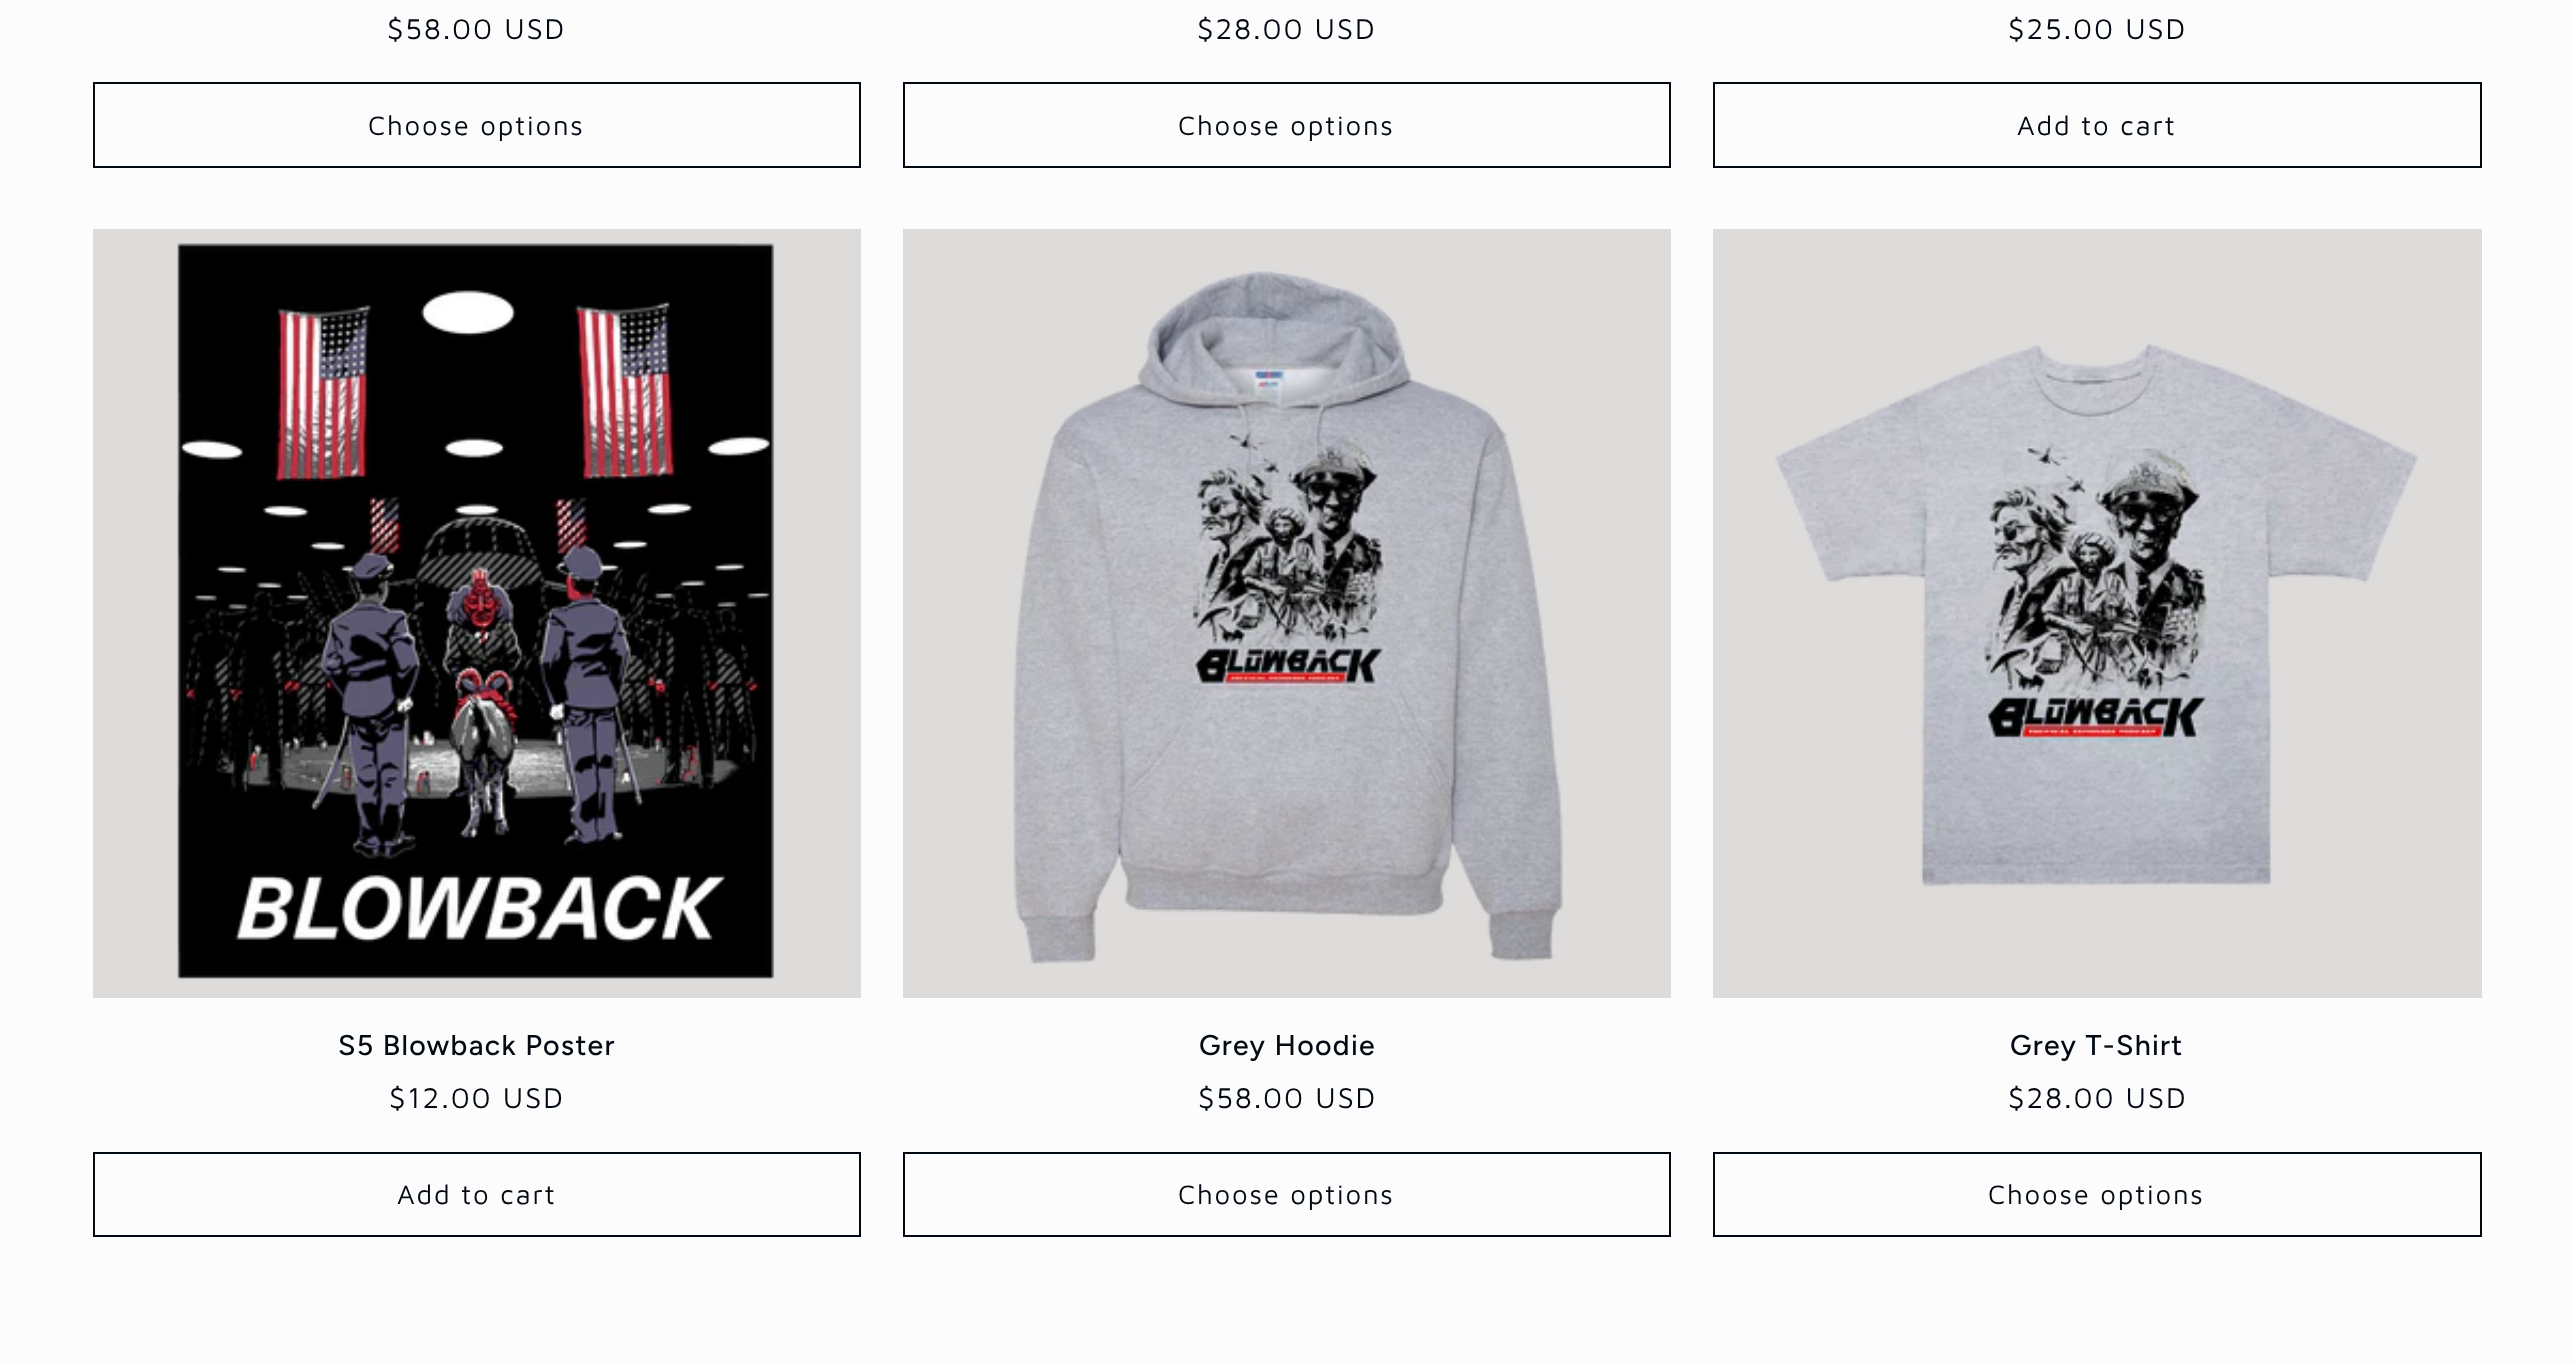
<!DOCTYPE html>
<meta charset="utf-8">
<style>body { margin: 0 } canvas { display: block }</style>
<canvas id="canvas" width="2573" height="1363"></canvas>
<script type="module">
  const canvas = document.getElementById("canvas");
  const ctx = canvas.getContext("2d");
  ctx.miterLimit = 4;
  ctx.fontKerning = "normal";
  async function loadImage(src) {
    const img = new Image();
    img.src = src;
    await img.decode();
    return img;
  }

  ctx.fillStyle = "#fcfcfc";
  ctx.fillRect(0, 0, 2573, 1363);
  ctx.letterSpacing = "1.8px";
  ctx.font = "29.5px Maven Pro";
  ctx.fillStyle = "#020912";
  ctx.fillText("$58.00 USD", 387, 39);
  ctx.strokeStyle = "#020912";
  ctx.lineWidth = 2;
  ctx.strokeRect(94, 83, 766, 84);
  ctx.font = "27.5px Maven Pro";
  ctx.fillText("Choose options", 368, 135);
  ctx.font = "29.5px Maven Pro";
  ctx.fillText("$28.00 USD", 1197, 39);
  ctx.strokeRect(904, 83, 766, 84);
  ctx.font = "27.5px Maven Pro";
  ctx.fillText("Choose options", 1178, 135);
  ctx.font = "29.5px Maven Pro";
  ctx.fillText("$25.00 USD", 2008, 39);
  ctx.strokeRect(1714, 83, 767, 84);
  ctx.font = "27.5px Maven Pro";
  ctx.fillText("Add to cart", 2017, 135);
  ctx.fillStyle = "#dedbdb";
  ctx.fillRect(93, 229, 768, 769);
  ctx.drawImage(await loadImage("img1.png"), 177, 243, 598, 737);
  ctx.letterSpacing = "1.3px";
  ctx.font = "500 28.5px Figtree";
  ctx.fillStyle = "#020912";
  ctx.fillText("S5 Blowback Poster", 338, 1055);
  ctx.letterSpacing = "1.8px";
  ctx.font = "29.5px Maven Pro";
  ctx.fillText("$12.00 USD", 389, 1108);
  ctx.strokeRect(94, 1153, 766, 83);
  ctx.font = "27.5px Maven Pro";
  ctx.fillText("Add to cart", 397, 1204);
  ctx.fillStyle = "#dedbdb";
  ctx.fillRect(903, 229, 768, 769);
  ctx.drawImage(await loadImage("img2.png"), 1013, 271, 550, 694);
  ctx.letterSpacing = "1.3px";
  ctx.font = "500 28.5px Figtree";
  ctx.fillStyle = "#020912";
  ctx.fillText("Grey Hoodie", 1199, 1055);
  ctx.letterSpacing = "1.8px";
  ctx.font = "29.5px Maven Pro";
  ctx.fillText("$58.00 USD", 1198, 1108);
  ctx.strokeRect(904, 1153, 766, 83);
  ctx.font = "27.5px Maven Pro";
  ctx.fillText("Choose options", 1178, 1204);
  ctx.fillStyle = "#dedbdb";
  ctx.fillRect(1713, 229, 769, 769);
  ctx.drawImage(await loadImage("img3.png"), 1775, 343, 643, 544);
  ctx.letterSpacing = "1.3px";
  ctx.font = "500 28.5px Figtree";
  ctx.fillStyle = "#020912";
  ctx.fillText("Grey T-Shirt", 2010, 1055);
  ctx.letterSpacing = "1.8px";
  ctx.font = "29.5px Maven Pro";
  ctx.fillText("$28.00 USD", 2008, 1108);
  ctx.strokeRect(1714, 1153, 767, 83);
  ctx.font = "27.5px Maven Pro";
  ctx.fillText("Choose options", 1988, 1204);
</script>
